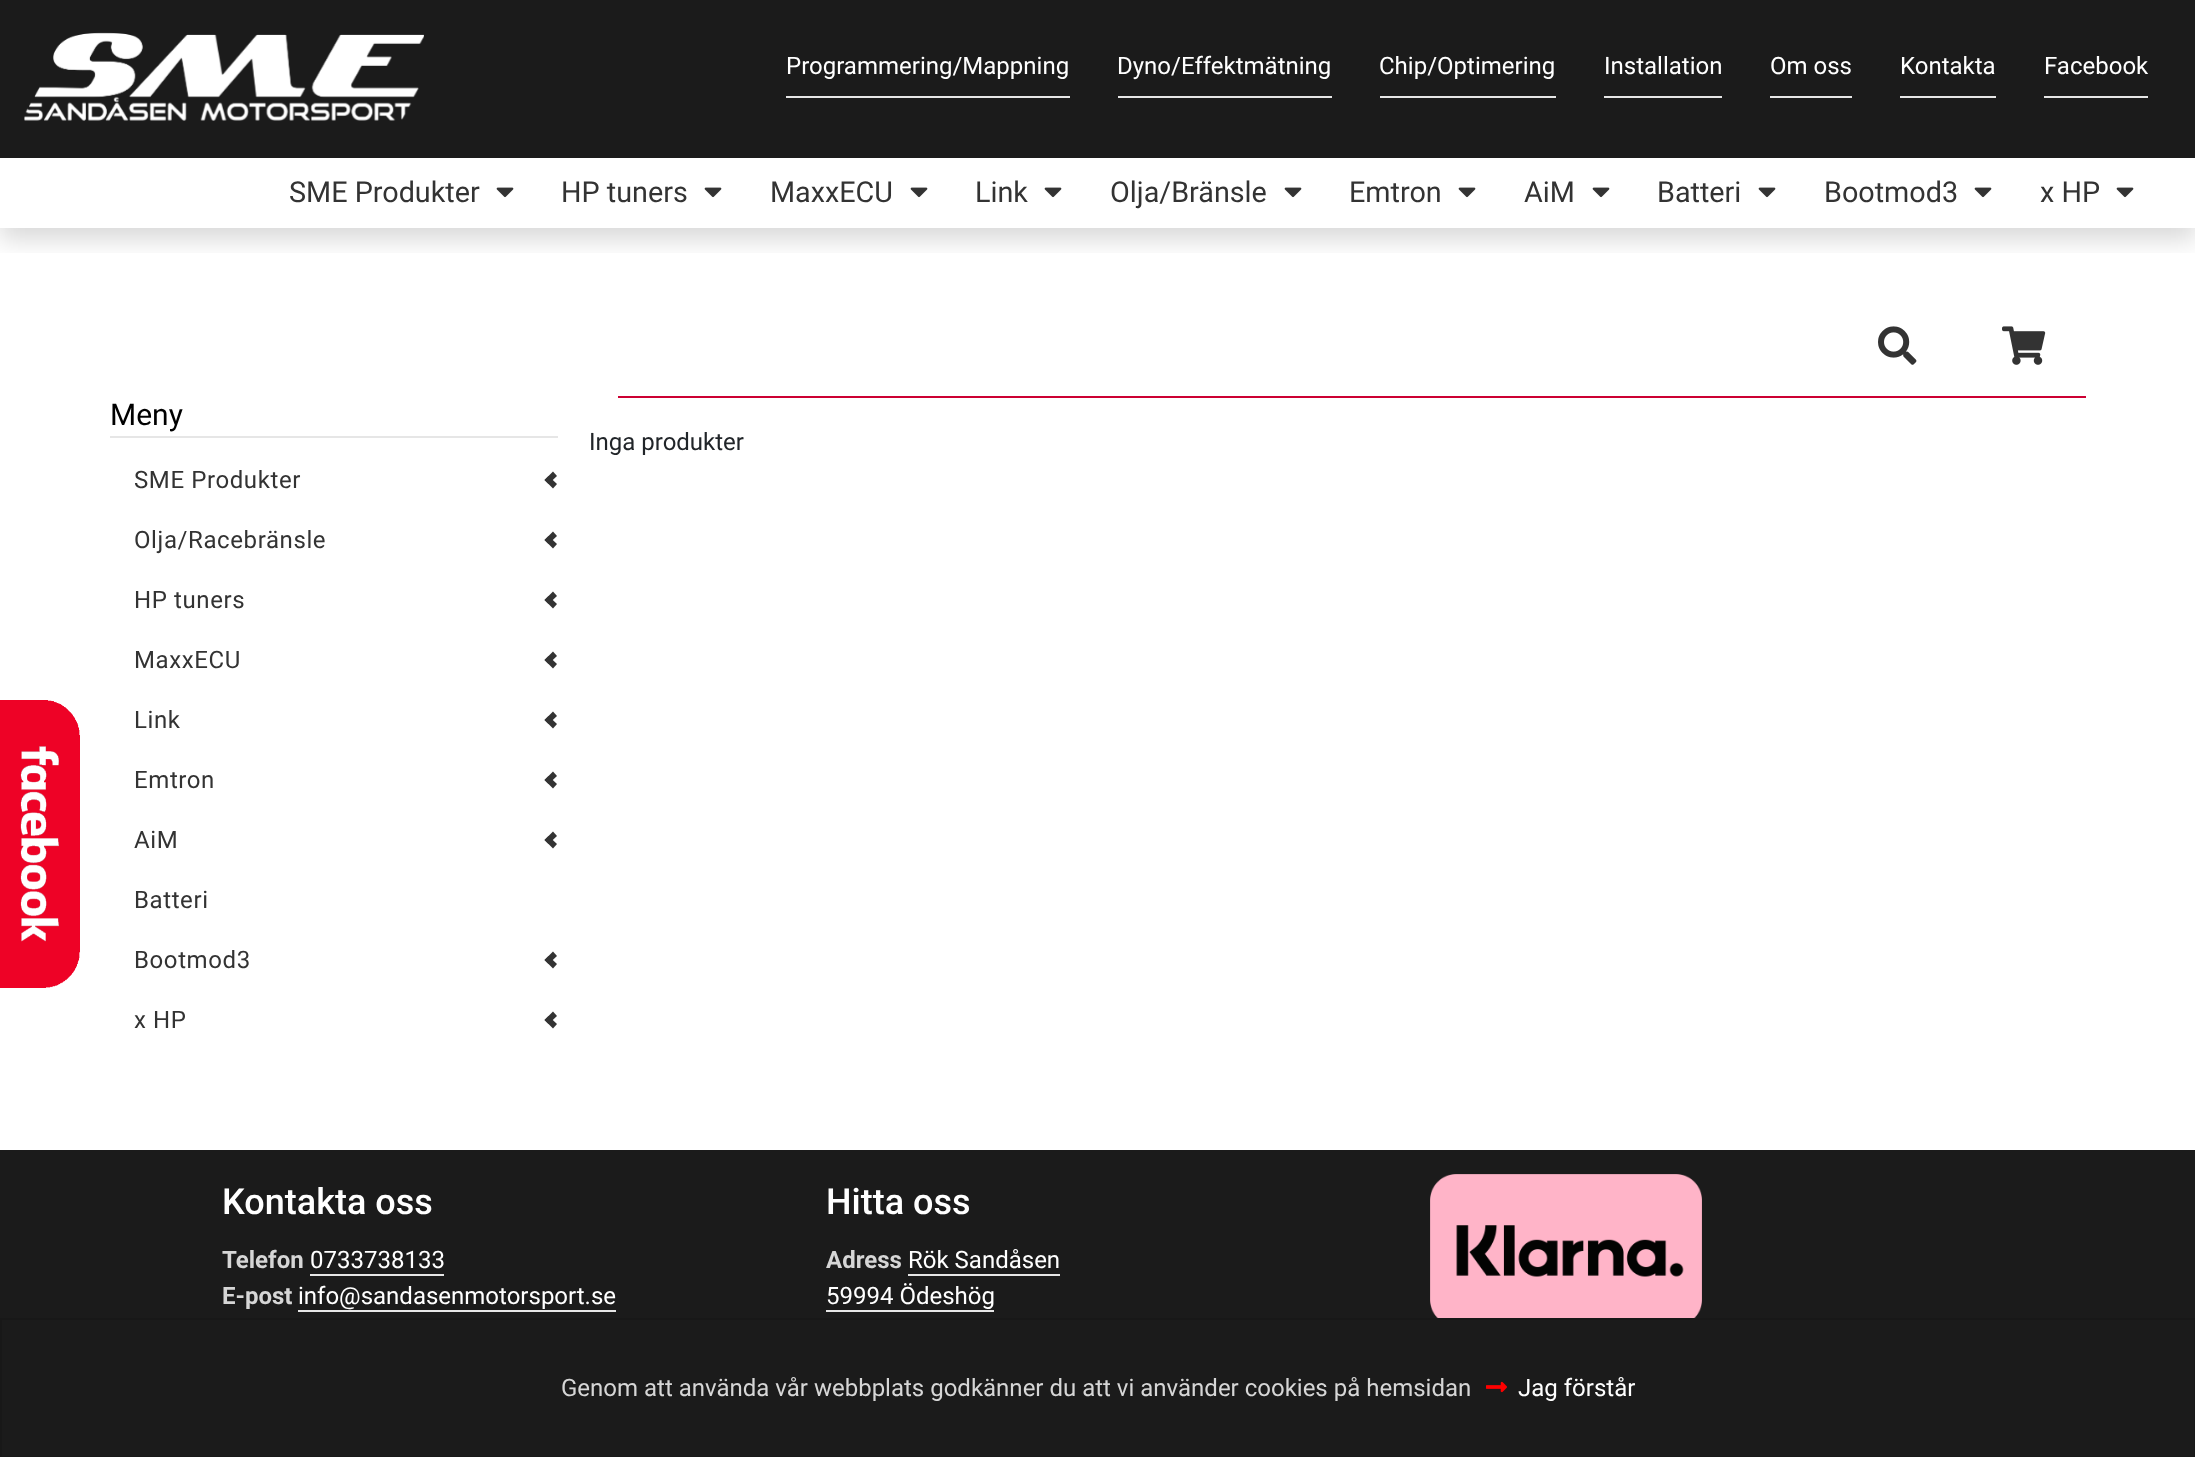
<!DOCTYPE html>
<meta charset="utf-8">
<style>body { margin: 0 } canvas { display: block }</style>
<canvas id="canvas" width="2195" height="1457"></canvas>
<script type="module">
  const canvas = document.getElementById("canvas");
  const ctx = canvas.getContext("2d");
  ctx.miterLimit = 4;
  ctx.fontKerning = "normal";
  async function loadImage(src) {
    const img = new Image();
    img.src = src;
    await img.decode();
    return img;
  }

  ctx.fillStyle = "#ffffff";
  ctx.fillRect(0, 0, 2195, 1457);
  ctx.save();
  ctx.beginPath();
  ctx.rect(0, 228, 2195, 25);
  ctx.clip();
  ctx.fillStyle = "rgba(0, 0, 0, 0.15)";
  ctx.filter = "blur(12px)";
  ctx.beginPath();
  ctx.rect(0, 12, 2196, 228);
  ctx.fill();
  ctx.filter = "none";
  ctx.restore();
  ctx.fillStyle = "#1b1b1b";
  ctx.fillRect(0, 0, 2195, 158);
  ctx.drawImage(await loadImage("img1.png"), 24, 32, 400, 89);
  ctx.fillStyle = "#e6e6e6";
  ctx.fillRect(786, 96, 284, 2);
  ctx.font = "24px Roboto";
  ctx.fillStyle = "#ffffff";
  ctx.fillText("Programmering/Mappning", 786, 74);
  ctx.fillStyle = "#e6e6e6";
  ctx.fillRect(1118, 96, 214, 2);
  ctx.fillStyle = "#ffffff";
  ctx.fillText("Dyno/Effektmätning", 1117, 74);
  ctx.fillStyle = "#e6e6e6";
  ctx.fillRect(1380, 96, 176, 2);
  ctx.fillStyle = "#ffffff";
  ctx.fillText("Chip/Optimering", 1379, 74);
  ctx.fillStyle = "#e6e6e6";
  ctx.fillRect(1604, 96, 118, 2);
  ctx.fillStyle = "#ffffff";
  ctx.fillText("Installation", 1604, 74);
  ctx.fillStyle = "#e6e6e6";
  ctx.fillRect(1770, 96, 82, 2);
  ctx.fillStyle = "#ffffff";
  ctx.fillText("Om oss", 1770, 74);
  ctx.fillStyle = "#e6e6e6";
  ctx.fillRect(1900, 96, 96, 2);
  ctx.fillStyle = "#ffffff";
  ctx.fillText("Kontakta", 1900, 74);
  ctx.fillStyle = "#e6e6e6";
  ctx.fillRect(2044, 96, 104, 2);
  ctx.fillStyle = "#ffffff";
  ctx.fillText("Facebook", 2044, 74);
  ctx.font = "28.75px Roboto";
  ctx.fillStyle = "#333333";
  ctx.fillText("SME Produkter", 289, 202);
  ctx.drawImage(await loadImage("img2.png"), 496, 187, 18, 11);
  ctx.fillText("HP tuners", 561, 202);
  ctx.drawImage(await loadImage("img2.png"), 704, 187, 18, 11);
  ctx.fillText("MaxxECU", 770, 202);
  ctx.drawImage(await loadImage("img2.png"), 910, 187, 18, 11);
  ctx.fillText("Link", 975, 202);
  ctx.drawImage(await loadImage("img2.png"), 1044, 187, 18, 11);
  ctx.fillText("Olja/Bränsle", 1110, 202);
  ctx.drawImage(await loadImage("img2.png"), 1284, 187, 18, 11);
  ctx.fillText("Emtron", 1349, 202);
  ctx.drawImage(await loadImage("img2.png"), 1458, 187, 18, 11);
  ctx.fillText("AiM", 1524, 202);
  ctx.drawImage(await loadImage("img2.png"), 1592, 187, 18, 11);
  ctx.fillText("Batteri", 1657, 202);
  ctx.drawImage(await loadImage("img2.png"), 1758, 187, 18, 11);
  ctx.fillText("Bootmod3", 1824, 202);
  ctx.drawImage(await loadImage("img2.png"), 1974, 187, 18, 11);
  ctx.fillText("x HP", 2040, 202);
  ctx.drawImage(await loadImage("img2.png"), 2116, 187, 18, 11);
  ctx.drawImage(await loadImage("img3.png"), 0, 700, 80, 288);
  ctx.drawImage(await loadImage("img4.png"), 1878, 326, 39, 39);
  ctx.drawImage(await loadImage("img5.png"), 2002, 326, 44, 39);
  ctx.fillStyle = "#e6e6e6";
  ctx.fillRect(110, 436, 448, 2);
  ctx.font = "30px Roboto";
  ctx.fillStyle = "#000000";
  ctx.fillText("Meny", 110, 425);
  ctx.letterSpacing = "0.6px";
  ctx.font = "24px Roboto";
  ctx.fillStyle = "#333333";
  ctx.fillText("SME Produkter", 134, 488);
  ctx.beginPath();
  ctx.moveTo(544.5, 480);
  ctx.lineTo(553, 471.5);
  ctx.lineTo(557, 476);
  ctx.lineTo(548.5, 484);
  ctx.closePath();
  ctx.fill();
  ctx.beginPath();
  ctx.moveTo(544.5, 480);
  ctx.lineTo(548.5, 476);
  ctx.lineTo(557, 484);
  ctx.lineTo(553, 488.5);
  ctx.closePath();
  ctx.fill();
  ctx.fillText("Olja/Racebränsle", 134, 548);
  ctx.beginPath();
  ctx.moveTo(544.5, 540);
  ctx.lineTo(553, 531.5);
  ctx.lineTo(557, 536);
  ctx.lineTo(548.5, 544);
  ctx.closePath();
  ctx.fill();
  ctx.beginPath();
  ctx.moveTo(544.5, 540);
  ctx.lineTo(548.5, 536);
  ctx.lineTo(557, 544);
  ctx.lineTo(553, 548.5);
  ctx.closePath();
  ctx.fill();
  ctx.fillText("HP tuners", 134, 608);
  ctx.beginPath();
  ctx.moveTo(544.5, 600);
  ctx.lineTo(553, 591.5);
  ctx.lineTo(557, 596);
  ctx.lineTo(548.5, 604);
  ctx.closePath();
  ctx.fill();
  ctx.beginPath();
  ctx.moveTo(544.5, 600);
  ctx.lineTo(548.5, 596);
  ctx.lineTo(557, 604);
  ctx.lineTo(553, 608.5);
  ctx.closePath();
  ctx.fill();
  ctx.fillText("MaxxECU", 134, 668);
  ctx.beginPath();
  ctx.moveTo(544.5, 660);
  ctx.lineTo(553, 651.5);
  ctx.lineTo(557, 656);
  ctx.lineTo(548.5, 664);
  ctx.closePath();
  ctx.fill();
  ctx.beginPath();
  ctx.moveTo(544.5, 660);
  ctx.lineTo(548.5, 656);
  ctx.lineTo(557, 664);
  ctx.lineTo(553, 668.5);
  ctx.closePath();
  ctx.fill();
  ctx.fillText("Link", 134, 728);
  ctx.beginPath();
  ctx.moveTo(544.5, 720);
  ctx.lineTo(553, 711.5);
  ctx.lineTo(557, 716);
  ctx.lineTo(548.5, 724);
  ctx.closePath();
  ctx.fill();
  ctx.beginPath();
  ctx.moveTo(544.5, 720);
  ctx.lineTo(548.5, 716);
  ctx.lineTo(557, 724);
  ctx.lineTo(553, 728.5);
  ctx.closePath();
  ctx.fill();
  ctx.fillText("Emtron", 134, 788);
  ctx.beginPath();
  ctx.moveTo(544.5, 780);
  ctx.lineTo(553, 771.5);
  ctx.lineTo(557, 776);
  ctx.lineTo(548.5, 784);
  ctx.closePath();
  ctx.fill();
  ctx.beginPath();
  ctx.moveTo(544.5, 780);
  ctx.lineTo(548.5, 776);
  ctx.lineTo(557, 784);
  ctx.lineTo(553, 788.5);
  ctx.closePath();
  ctx.fill();
  ctx.fillText("AiM", 134, 848);
  ctx.beginPath();
  ctx.moveTo(544.5, 840);
  ctx.lineTo(553, 831.5);
  ctx.lineTo(557, 836);
  ctx.lineTo(548.5, 844);
  ctx.closePath();
  ctx.fill();
  ctx.beginPath();
  ctx.moveTo(544.5, 840);
  ctx.lineTo(548.5, 836);
  ctx.lineTo(557, 844);
  ctx.lineTo(553, 848.5);
  ctx.closePath();
  ctx.fill();
  ctx.fillText("Batteri", 134, 908);
  ctx.fillText("Bootmod3", 134, 968);
  ctx.beginPath();
  ctx.moveTo(544.5, 960);
  ctx.lineTo(553, 951.5);
  ctx.lineTo(557, 956);
  ctx.lineTo(548.5, 964);
  ctx.closePath();
  ctx.fill();
  ctx.beginPath();
  ctx.moveTo(544.5, 960);
  ctx.lineTo(548.5, 956);
  ctx.lineTo(557, 964);
  ctx.lineTo(553, 968.5);
  ctx.closePath();
  ctx.fill();
  ctx.fillText("x HP", 134, 1028);
  ctx.beginPath();
  ctx.moveTo(544.5, 1020);
  ctx.lineTo(553, 1011.5);
  ctx.lineTo(557, 1016);
  ctx.lineTo(548.5, 1024);
  ctx.closePath();
  ctx.fill();
  ctx.beginPath();
  ctx.moveTo(544.5, 1020);
  ctx.lineTo(548.5, 1016);
  ctx.lineTo(557, 1024);
  ctx.lineTo(553, 1028.5);
  ctx.closePath();
  ctx.fill();
  ctx.fillStyle = "#cc0033";
  ctx.fillRect(618, 396, 1468, 2);
  ctx.letterSpacing = "0px";
  ctx.fillStyle = "#212529";
  ctx.fillText("Inga produkter", 589, 450);
  ctx.fillStyle = "#1b1b1b";
  ctx.fillRect(0, 1150, 2195, 168);
  ctx.font = "500 36px Roboto";
  ctx.fillStyle = "#ffffff";
  ctx.fillText("Kontakta oss", 222, 1214);
  ctx.font = "bold 24px Roboto";
  ctx.fillStyle = "#d6d6d6";
  ctx.fillText("Telefon", 222, 1268);
  ctx.font = "24px Roboto";
  ctx.fillStyle = "#ffffff";
  ctx.fillText("0733738133", 310, 1268);
  ctx.fillStyle = "#e6e6e6";
  ctx.fillRect(310, 1274, 134, 2);
  ctx.font = "bold 24px Roboto";
  ctx.fillStyle = "#d6d6d6";
  ctx.fillText("E-post", 222, 1304);
  ctx.font = "24px Roboto";
  ctx.fillStyle = "#ffffff";
  ctx.fillText("info@sandasenmotorsport.se", 298, 1304);
  ctx.fillStyle = "#e6e6e6";
  ctx.fillRect(298, 1310, 318, 2);
  ctx.font = "500 36px Roboto";
  ctx.fillStyle = "#ffffff";
  ctx.fillText("Hitta oss", 826, 1214);
  ctx.font = "bold 24px Roboto";
  ctx.fillStyle = "#d6d6d6";
  ctx.fillText("Adress", 826, 1268);
  ctx.font = "24px Roboto";
  ctx.fillStyle = "#ffffff";
  ctx.fillText("Rök Sandåsen", 908, 1268);
  ctx.fillStyle = "#e6e6e6";
  ctx.fillRect(908, 1274, 152, 2);
  ctx.fillStyle = "#ffffff";
  ctx.fillText("59994 Ödeshög", 826, 1304);
  ctx.fillStyle = "#e6e6e6";
  ctx.fillRect(826, 1310, 168, 2);
  ctx.drawImage(await loadImage("img6.png"), 1430, 1174, 272, 144);
  ctx.fillStyle = "#1b1b1b";
  ctx.beginPath();
  ctx.rect(1, 1319, 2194, 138);
  ctx.fill();
  ctx.strokeStyle = "#181818";
  ctx.lineWidth = 2;
  ctx.stroke();
  ctx.fillStyle = "#d6d6d6";
  ctx.fillText("Genom att använda vår webbplats godkänner du att vi använder cookies på hemsidan", 561, 1396);
  ctx.drawImage(await loadImage("img7.png"), 1486, 1381, 21, 12);
  ctx.fillStyle = "#ffffff";
  ctx.fillText("Jag förstår", 1518, 1396);
</script>
